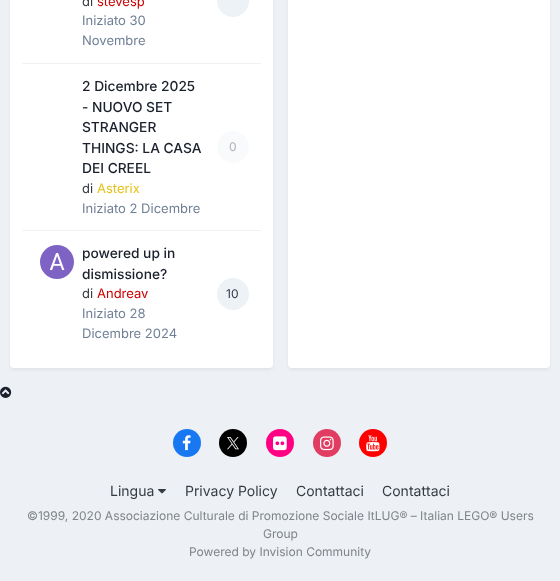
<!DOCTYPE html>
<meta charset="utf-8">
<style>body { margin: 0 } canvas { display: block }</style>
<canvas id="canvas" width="560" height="581"></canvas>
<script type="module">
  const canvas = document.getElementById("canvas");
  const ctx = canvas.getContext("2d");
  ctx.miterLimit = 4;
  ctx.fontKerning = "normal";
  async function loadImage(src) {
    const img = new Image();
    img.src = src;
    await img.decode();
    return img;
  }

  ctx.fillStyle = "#edf0f4";
  ctx.fillRect(0, 0, 560, 581);
  ctx.fillStyle = "rgba(45, 55, 72, 0.1)";
  ctx.filter = "blur(2px)";
  ctx.beginPath();
  ctx.roundRect(11, -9, 261, 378, 3);
  ctx.fill();
  ctx.filter = "none";
  ctx.fillStyle = "#ffffff";
  ctx.beginPath();
  ctx.roundRect(10, -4, 263, 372, 4);
  ctx.fill();
  ctx.fillStyle = "#f1f2f5";
  ctx.fillRect(22, 63, 239, 1);
  ctx.font = "13px Inter";
  ctx.fillStyle = "#353c41";
  ctx.fillText("di", 82, 6);
  ctx.fillStyle = "#cc0000";
  ctx.fillText("stevesp", 97, 6);
  ctx.fillStyle = "#718096";
  ctx.fillText("Iniziato 30", 82, 25);
  ctx.fillText("Novembre", 82, 45);
  ctx.fillStyle = "#edf2f7";
  ctx.beginPath();
  ctx.arc(233, 1, 16, 0, Math.PI * 2);
  ctx.fill();
  ctx.fillStyle = "#f1f2f5";
  ctx.fillRect(22, 230, 239, 1);
  ctx.font = "500 13.75px Inter";
  ctx.fillStyle = "#1a202c";
  ctx.fillText("2 Dicembre 2025", 82, 91);
  ctx.fillText("- NUOVO SET", 82, 112);
  ctx.fillText("STRANGER", 82, 132);
  ctx.fillText("THINGS: LA CASA", 82, 153);
  ctx.fillText("DEI CREEL", 82, 173);
  ctx.fillStyle = "#f8fafc";
  ctx.beginPath();
  ctx.arc(233, 147, 16, 0, Math.PI * 2);
  ctx.fill();
  ctx.font = "12px Inter";
  ctx.fillStyle = "#abafb6";
  ctx.fillText("0", 229, 151);
  ctx.font = "13px Inter";
  ctx.fillStyle = "#353c41";
  ctx.fillText("di", 82, 193);
  ctx.fillStyle = "#e4c318";
  ctx.fillText("Asterix", 97, 193);
  ctx.fillStyle = "#718096";
  ctx.fillText("Iniziato 2 Dicembre", 82, 213);
  ctx.drawImage(await loadImage("img1.png"), 40, 245, 34, 34);
  ctx.font = "500 13.75px Inter";
  ctx.fillStyle = "#1a202c";
  ctx.fillText("powered up in", 82, 258);
  ctx.fillText("dismissione?", 82, 279);
  ctx.font = "13px Inter";
  ctx.fillStyle = "#353c41";
  ctx.fillText("di", 82, 298);
  ctx.fillStyle = "#cc0000";
  ctx.fillText("Andreav", 97, 298);
  ctx.fillStyle = "#718096";
  ctx.fillText("Iniziato 28", 82, 318);
  ctx.fillText("Dicembre 2024", 82, 338);
  ctx.fillStyle = "#edf2f7";
  ctx.beginPath();
  ctx.arc(233, 294, 16, 0, Math.PI * 2);
  ctx.fill();
  ctx.font = "12px Inter";
  ctx.fillStyle = "#2d3748";
  ctx.fillText("10", 226, 298);
  ctx.fillStyle = "rgba(45, 55, 72, 0.1)";
  ctx.filter = "blur(2px)";
  ctx.beginPath();
  ctx.roundRect(289, -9, 260, 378, 3);
  ctx.fill();
  ctx.filter = "none";
  ctx.fillStyle = "#ffffff";
  ctx.beginPath();
  ctx.roundRect(288, -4, 262, 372, 4);
  ctx.fill();
  ctx.drawImage(await loadImage("img2.png"), 0, 386, 12, 12);
  ctx.fillStyle = "#1778f2";
  ctx.beginPath();
  ctx.arc(187, 443, 14, 0, Math.PI * 2);
  ctx.fill();
  ctx.drawImage(await loadImage("img3.png"), 182, 435, 9, 16);
  ctx.fillStyle = "#000000";
  ctx.beginPath();
  ctx.arc(233, 443, 14, 0, Math.PI * 2);
  ctx.fill();
  ctx.drawImage(await loadImage("img4.png"), 227, 437, 12, 13);
  ctx.fillStyle = "#ff0084";
  ctx.beginPath();
  ctx.arc(280, 443, 14, 0, Math.PI * 2);
  ctx.fill();
  ctx.drawImage(await loadImage("img5.png"), 273, 436, 14, 15);
  ctx.fillStyle = "#e13d62";
  ctx.beginPath();
  ctx.arc(327, 443, 14, 0, Math.PI * 2);
  ctx.fill();
  ctx.drawImage(await loadImage("img6.png"), 320, 436, 14, 15);
  ctx.fillStyle = "#ff0000";
  ctx.beginPath();
  ctx.arc(373, 443, 14, 0, Math.PI * 2);
  ctx.fill();
  ctx.drawImage(await loadImage("img7.png"), 366, 435, 14, 17);
  ctx.font = "14px Inter";
  ctx.fillStyle = "#353c41";
  ctx.fillText("Lingua", 110, 496);
  ctx.drawImage(await loadImage("img8.png"), 158, 489, 8, 5);
  ctx.fillText("Privacy Policy", 185, 496);
  ctx.fillText("Contattaci", 296, 496);
  ctx.fillText("Contattaci", 382, 496);
  ctx.font = "12px Inter";
  ctx.fillStyle = "#7f8489";
  ctx.fillText("©1999, 2020 Associazione Culturale di Promozione Sociale ItLUG® – Italian LEGO® Users", 27, 520);
  ctx.fillText("Group", 263, 538);
  ctx.fillText("Powered by Invision Community", 189, 556);
</script>
